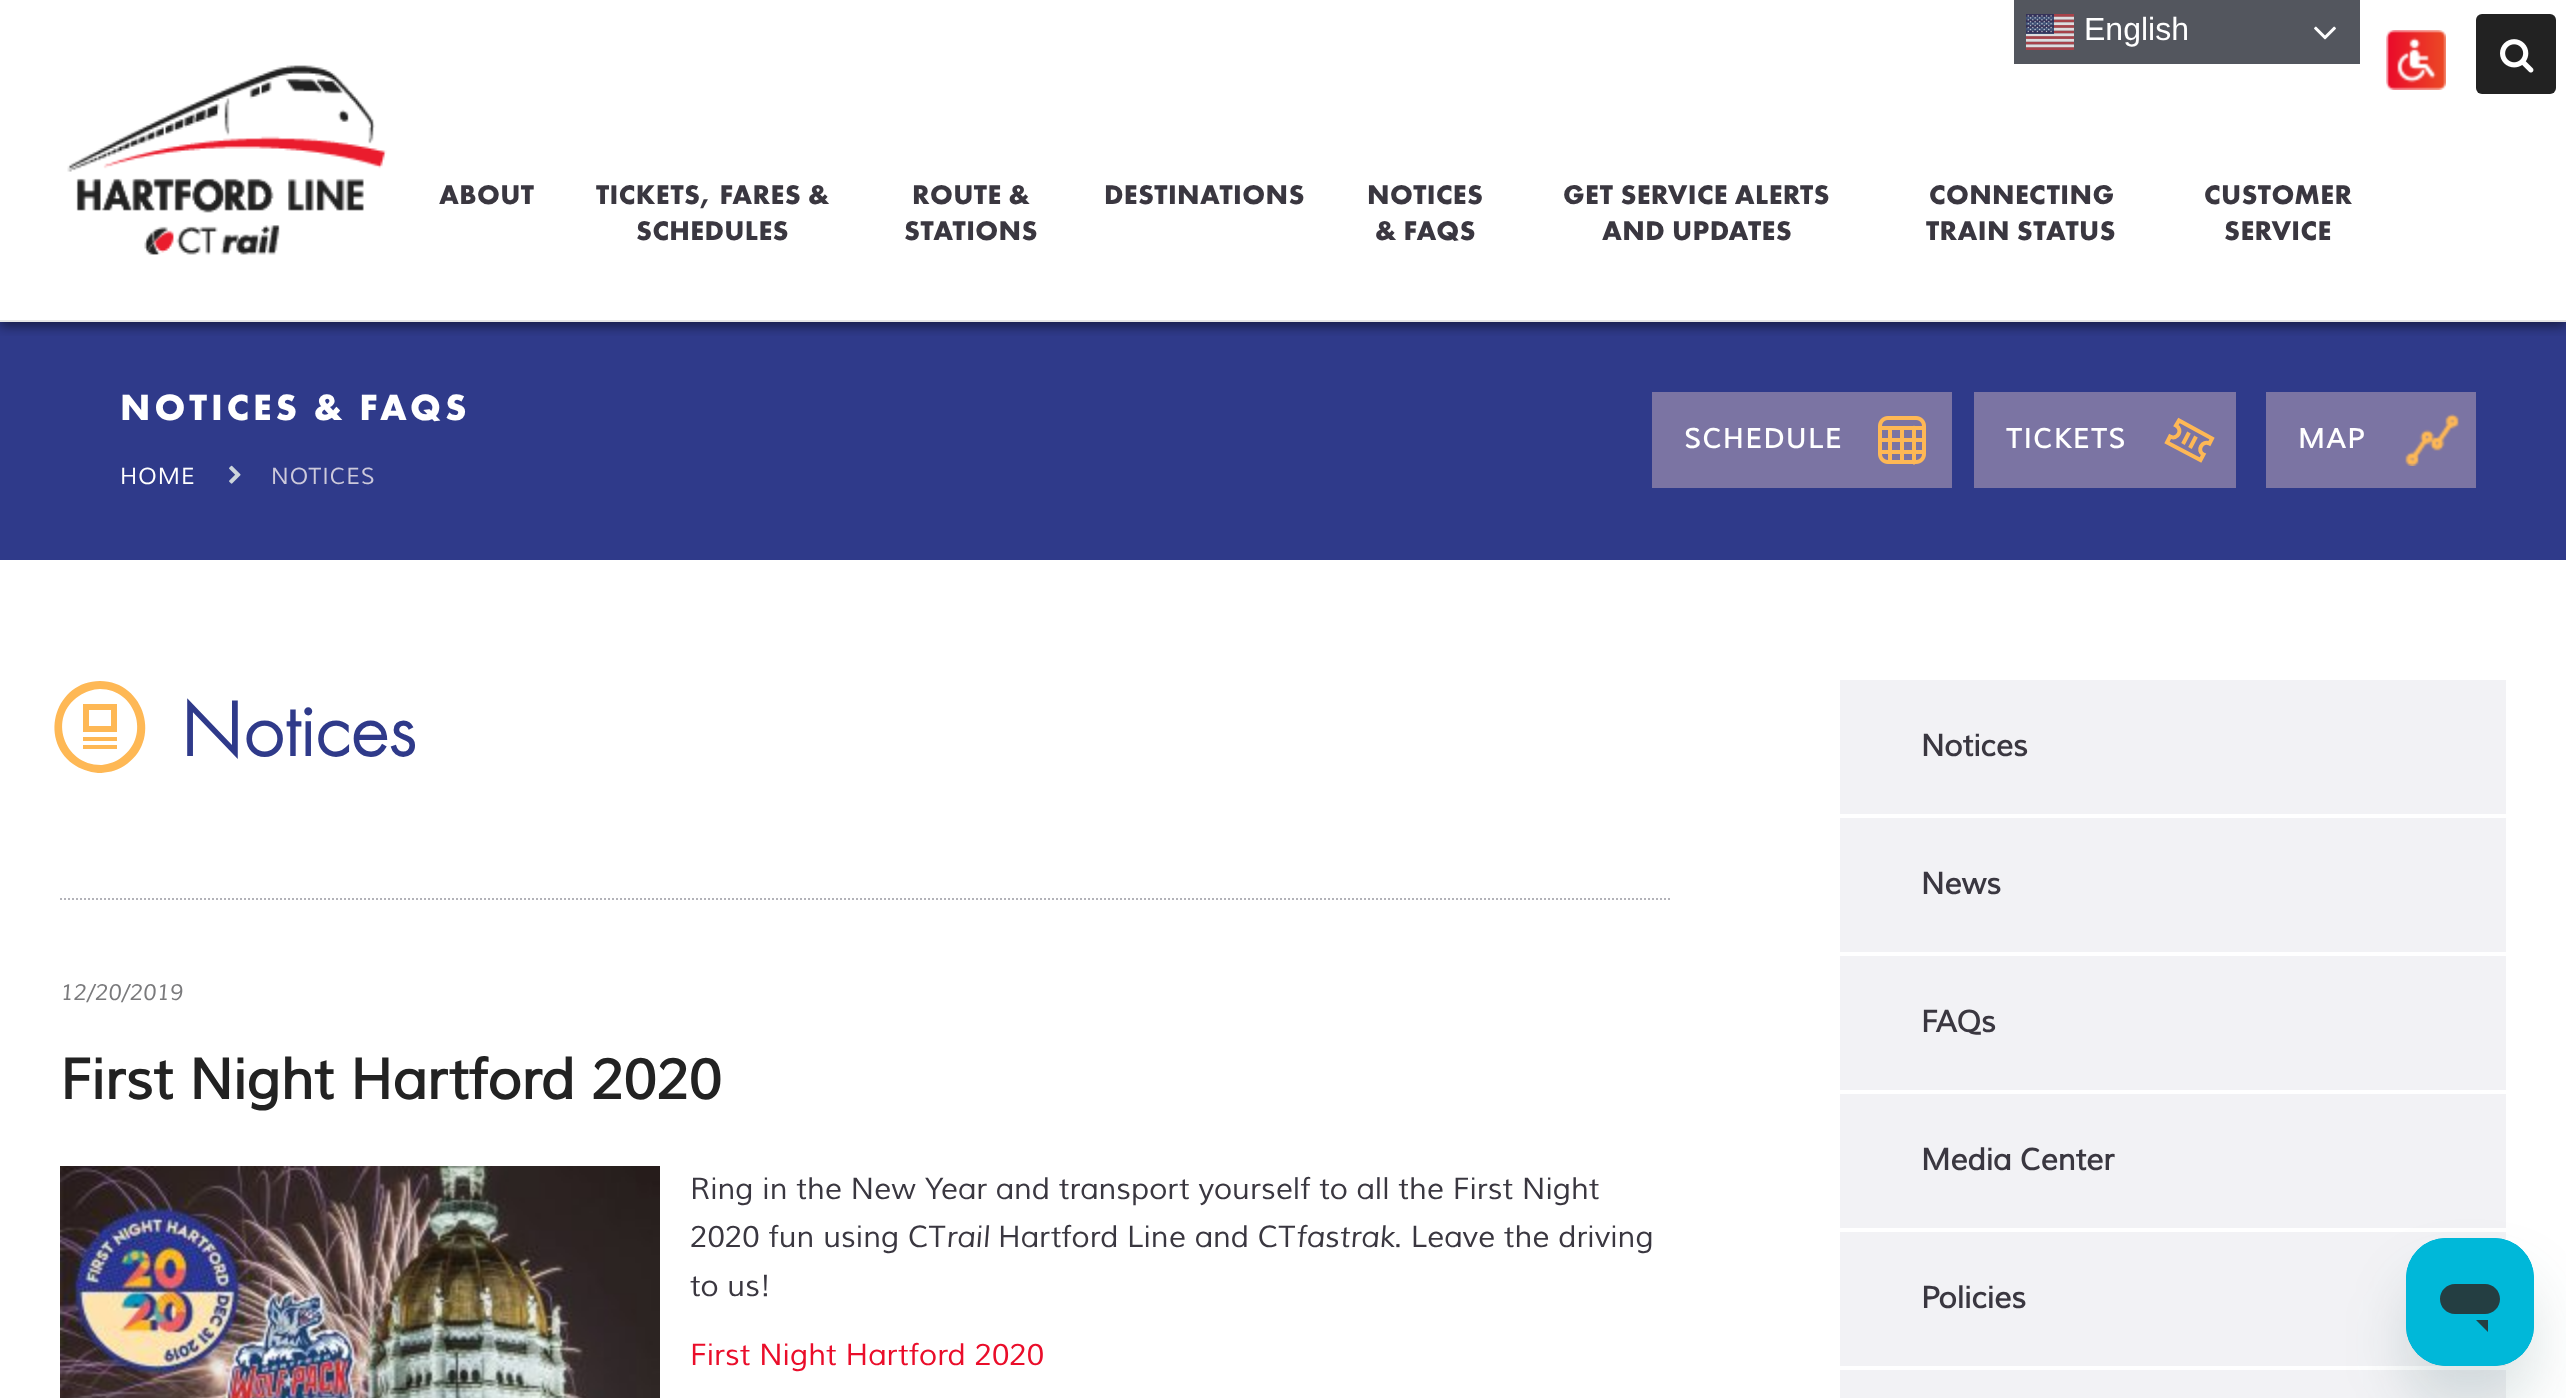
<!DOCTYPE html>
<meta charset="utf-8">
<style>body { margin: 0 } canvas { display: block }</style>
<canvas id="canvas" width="2566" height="1398"></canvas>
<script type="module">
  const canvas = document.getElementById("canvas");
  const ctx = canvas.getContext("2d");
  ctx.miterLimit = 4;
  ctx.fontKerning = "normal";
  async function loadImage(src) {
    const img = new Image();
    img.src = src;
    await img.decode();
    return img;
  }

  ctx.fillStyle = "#ffffff";
  ctx.fillRect(0, 0, 2566, 1398);
  ctx.fillStyle = "#2f3a8a";
  ctx.fillRect(0, 322, 2566, 238);
  ctx.save();
  ctx.beginPath();
  ctx.rect(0, 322, 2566, 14);
  ctx.clip();
  ctx.fillStyle = "rgba(0, 0, 0, 0.5)";
  ctx.filter = "blur(6px)";
  ctx.beginPath();
  ctx.rect(0, 4, 2566, 322);
  ctx.fill();
  ctx.filter = "none";
  ctx.restore();
  ctx.fillStyle = "#53565e";
  ctx.fillRect(2014, 0, 346, 64);
  ctx.drawImage(await loadImage("img1.png"), 2026, 14, 48, 36);
  ctx.font = "32px Liberation Sans";
  ctx.fillStyle = "#ffffff";
  ctx.fillText("English", 2084, 40);
  ctx.drawImage(await loadImage("img2.png"), 2314, 26, 22, 14);
  ctx.fillStyle = "#e6e6e6";
  ctx.fillRect(0, 320, 2566, 2);
  ctx.drawImage(await loadImage("img3.png"), 67, 65, 320, 190);
  ctx.letterSpacing = "0.4px";
  ctx.font = "bold 28px Futura PT";
  ctx.fillStyle = "#3a3740";
  ctx.fillText("ABOUT", 439, 204);
  ctx.fillText("TICKETS, FARES &", 596, 204);
  ctx.fillText("SCHEDULES", 636, 240);
  ctx.fillText("ROUTE &", 912, 204);
  ctx.fillText("STATIONS", 904, 240);
  ctx.fillText("DESTINATIONS", 1104, 204);
  ctx.fillText("NOTICES", 1367, 204);
  ctx.fillText("& FAQS", 1375, 240);
  ctx.fillText("GET SERVICE ALERTS", 1563, 204);
  ctx.fillText("AND UPDATES", 1602, 240);
  ctx.fillText("CONNECTING", 1929, 204);
  ctx.fillText("TRAIN STATUS", 1926, 240);
  ctx.fillText("CUSTOMER", 2204, 204);
  ctx.fillText("SERVICE", 2224, 240);
  ctx.drawImage(await loadImage("img4.png"), 2386, 30, 60, 60);
  ctx.fillStyle = "#222222";
  ctx.beginPath();
  ctx.roundRect(2476, 14, 80, 80, 6);
  ctx.fill();
  ctx.drawImage(await loadImage("img5.png"), 2500, 39, 34, 34);
  ctx.letterSpacing = "4px";
  ctx.font = "bold 37.75px Futura PT";
  ctx.fillStyle = "#ffffff";
  ctx.fillText("NOTICES & FAQS", 120, 420);
  ctx.letterSpacing = "1px";
  ctx.font = "italic 22.75px Muli";
  ctx.fillText("HOME", 120, 484);
  ctx.drawImage(await loadImage("img6.png"), 229, 465, 12, 19);
  ctx.fillStyle = "#ccc9db";
  ctx.fillText("NOTICES", 271, 484);
  ctx.fillStyle = "#7b74a3";
  ctx.fillRect(1652, 392, 300, 96);
  ctx.drawImage(await loadImage("img7.png"), 1878, 416, 48, 49);
  ctx.letterSpacing = "2px";
  ctx.font = "italic bold 27px Muli";
  ctx.fillStyle = "#ffffff";
  ctx.fillText("SCHEDULE", 1684, 448);
  ctx.fillStyle = "#7b74a3";
  ctx.fillRect(1974, 392, 262, 96);
  ctx.beginPath();
  ctx.moveTo(2212, 438.5);
  ctx.lineTo(2179, 420.5);
  ctx.lineTo(2176, 425.5);
  ctx.bezierCurveTo(2183.5, 429.5, 2177.5, 440.5, 2170, 436.5);
  ctx.lineTo(2167, 442.5);
  ctx.lineTo(2200.5, 460);
  ctx.lineTo(2203.5, 454.5);
  ctx.bezierCurveTo(2196, 451, 2202.5, 439.5, 2209.5, 443.5);
  ctx.closePath();
  ctx.moveTo(2189, 432.5);
  ctx.lineTo(2183, 444);
  ctx.moveTo(2196, 436.5);
  ctx.lineTo(2190, 448);
  ctx.strokeStyle = "#feb855";
  ctx.lineWidth = 4;
  ctx.stroke();
  ctx.fillStyle = "#ffffff";
  ctx.fillText("TICKETS", 2006, 448);
  ctx.fillStyle = "#7b74a3";
  ctx.fillRect(2266, 392, 210, 96);
  ctx.drawImage(await loadImage("img8.png"), 2405, 414, 54, 52);
  ctx.fillStyle = "#ffffff";
  ctx.fillText("MAP", 2298, 448);
  ctx.fillStyle = "#feb855";
  ctx.beginPath();
  ctx.moveTo(100, 689);
  ctx.bezierCurveTo(136, 689, 151, 736, 122, 757);
  ctx.bezierCurveTo(116, 762, 109, 764, 102, 765);
  ctx.bezierCurveTo(64, 766, 47, 717, 79, 696);
  ctx.bezierCurveTo(85, 692, 93, 689, 100, 689);
  ctx.moveTo(100, 681);
  ctx.bezierCurveTo(56, 681, 38, 738, 73, 764);
  ctx.bezierCurveTo(80, 769, 89, 772, 98, 773);
  ctx.bezierCurveTo(107, 773, 116, 771, 124, 766);
  ctx.bezierCurveTo(163, 742, 145, 681, 100, 681);
  ctx.closePath();
  ctx.fill();
  ctx.letterSpacing = "0px";
  ctx.font = "bold 80px 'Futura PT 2'";
  ctx.fillStyle = "#2f3a8a";
  ctx.fillText("Notices", 180, 756);
  ctx.lineWidth = 6;
  ctx.strokeRect(86, 707, 28, 22);
  ctx.fillStyle = "#feb855";
  ctx.fillRect(83, 737, 34, 4);
  ctx.fillRect(83, 745, 34, 4);
  ctx.beginPath();
  ctx.moveTo(60, 899);
  ctx.lineTo(1670, 899);
  ctx.strokeStyle = "#b3b3b9";
  ctx.lineWidth = 2;
  ctx.setLineDash([2, 2]);
  ctx.stroke();
  ctx.letterSpacing = "0.25px";
  ctx.font = "italic 22.5px 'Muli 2'";
  ctx.fillStyle = "#7a7a7c";
  ctx.fillText("12/20/2019", 60, 1000);
  ctx.letterSpacing = "0px";
  ctx.font = "italic bold 56px Muli";
  ctx.fillStyle = "#222222";
  ctx.fillText("First Night Hartford 2020", 60, 1099);
  ctx.drawImage(await loadImage("img9.png"), 60, 1166, 600, 232);
  ctx.font = "italic 30px Muli";
  ctx.fillStyle = "#3a3740";
  ctx.fillText("Ring in the New Year and transport yourself to all the First Night", 690, 1199);
  ctx.fillText("2020 fun using CT", 690, 1247);
  ctx.font = "italic 30px 'Muli 2'";
  ctx.fillText("rail", 946, 1247);
  ctx.font = "italic 30px Muli";
  ctx.fillText("Hartford Line and CT", 998, 1247);
  ctx.font = "italic 30px 'Muli 2'";
  ctx.fillText("fastrak", 1296, 1247);
  ctx.font = "italic 30px Muli";
  ctx.fillText(". Leave the driving", 1394, 1247);
  ctx.fillText("to us!", 690, 1296);
  ctx.fillStyle = "#ea0d2a";
  ctx.fillText("First Night Hartford 2020", 690, 1365);
  ctx.fillStyle = "#f2f2f5";
  ctx.fillRect(1840, 680, 666, 134);
  ctx.font = "italic bold 30px Muli";
  ctx.fillStyle = "#3a3740";
  ctx.fillText("Notices", 1921, 756);
  ctx.fillStyle = "#f2f2f5";
  ctx.fillRect(1840, 818, 666, 134);
  ctx.fillStyle = "#3a3740";
  ctx.fillText("News", 1921, 894);
  ctx.fillStyle = "#f2f2f5";
  ctx.fillRect(1840, 956, 666, 134);
  ctx.fillStyle = "#3a3740";
  ctx.fillText("FAQs", 1921, 1032);
  ctx.fillStyle = "#f2f2f5";
  ctx.fillRect(1840, 1094, 666, 134);
  ctx.fillStyle = "#3a3740";
  ctx.fillText("Media Center", 1921, 1170);
  ctx.fillStyle = "#f2f2f5";
  ctx.fillRect(1840, 1232, 666, 134);
  ctx.fillStyle = "#3a3740";
  ctx.fillText("Policies", 1921, 1308);
  ctx.fillStyle = "#f2f2f5";
  ctx.fillRect(1840, 1370, 666, 28);
  ctx.fillStyle = "rgba(23, 73, 77, 0.15)";
  ctx.filter = "blur(30px)";
  ctx.beginPath();
  ctx.roundRect(2406, 1278, 128, 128, 40);
  ctx.fill();
  ctx.filter = "none";
  ctx.drawImage(await loadImage("img10.png"), 2406, 1238, 128, 128);
</script>
